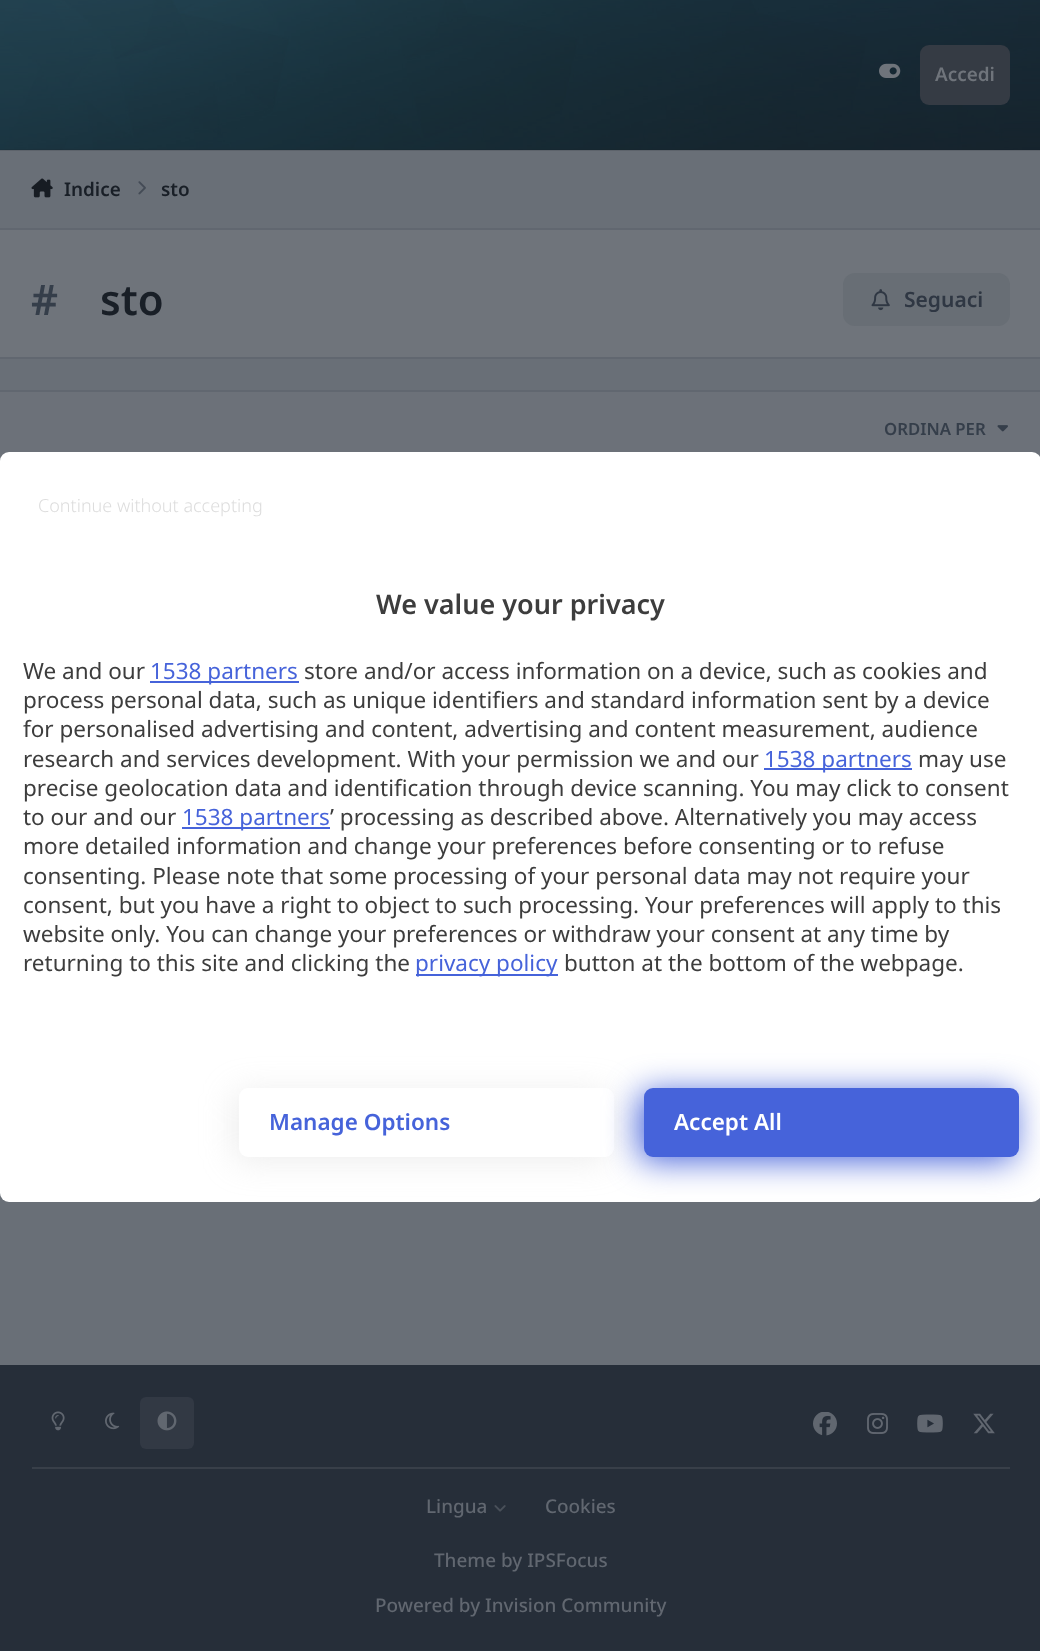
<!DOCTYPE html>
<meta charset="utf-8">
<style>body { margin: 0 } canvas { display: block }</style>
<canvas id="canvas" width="1040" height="1651"></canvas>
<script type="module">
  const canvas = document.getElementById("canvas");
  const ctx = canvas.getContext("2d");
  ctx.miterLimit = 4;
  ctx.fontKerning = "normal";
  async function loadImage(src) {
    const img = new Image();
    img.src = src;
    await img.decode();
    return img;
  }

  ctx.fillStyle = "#696f77";
  ctx.fillRect(0, 0, 1040, 1651);
  ctx.drawImage(await loadImage("img1.png"), 0, 0, 1040, 150);
  ctx.fillStyle = "rgba(25, 31, 39, 0.15)";
  ctx.fillRect(0, 149, 1040, 2);
  ctx.drawImage(await loadImage("img2.png"), 879, 63, 22, 15);
  ctx.fillStyle = "#353b44";
  ctx.beginPath();
  ctx.roundRect(920, 45, 90, 60, 9);
  ctx.fill();
  ctx.font = "600 18.9px Noto Sans";
  ctx.fillStyle = "#6f747b";
  ctx.fillText("Accedi", 935, 81);
  ctx.drawImage(await loadImage("img3.png"), 31, 178, 22, 20);
  ctx.fillStyle = "#191f27";
  ctx.fillText("Indice", 64, 196);
  ctx.drawImage(await loadImage("img4.png"), 138, 181, 8, 14);
  ctx.fillText("sto", 161, 196);
  ctx.fillStyle = "#6f747b";
  ctx.fillRect(0, 230, 1040, 127);
  ctx.fillStyle = "#616770";
  ctx.fillRect(0, 228, 1040, 2);
  ctx.fillRect(0, 357, 1040, 2);
  ctx.font = "600 42px Noto Sans";
  ctx.fillStyle = "#353e4a";
  ctx.fillText("#", 31, 315);
  ctx.fillStyle = "#191f27";
  ctx.fillText("sto", 100, 315);
  ctx.fillStyle = "#686e75";
  ctx.beginPath();
  ctx.roundRect(843, 273, 167, 53, 12);
  ctx.fill();
  ctx.drawImage(await loadImage("img5.png"), 871, 289, 19, 22);
  ctx.font = "600 21px Noto Sans";
  ctx.fillStyle = "#2f3743";
  ctx.fillText("Seguaci", 904, 307);
  ctx.fillStyle = "#616770";
  ctx.fillRect(0, 390, 1040, 2);
  ctx.fillStyle = "#6c7179";
  ctx.fillRect(0, 392, 1040, 69);
  ctx.font = "600 16.75px Noto Sans";
  ctx.fillStyle = "#353e4a";
  ctx.fillText("ORDINA PER", 884, 435);
  ctx.drawImage(await loadImage("img6.png"), 997, 425, 11, 7);
  ctx.fillStyle = "#262e39";
  ctx.fillRect(0, 1365, 1040, 285);
  ctx.drawImage(await loadImage("img7.png"), 51, 1411, 14, 20);
  ctx.drawImage(await loadImage("img8.png"), 105, 1412, 15, 18);
  ctx.fillStyle = "#323944";
  ctx.beginPath();
  ctx.roundRect(140, 1397, 54, 52, 6);
  ctx.fill();
  ctx.drawImage(await loadImage("img9.png"), 157, 1411, 20, 20);
  ctx.drawImage(await loadImage("img10.png"), 813, 1412, 24, 24);
  ctx.drawImage(await loadImage("img11.png"), 867, 1413, 21, 21);
  ctx.drawImage(await loadImage("img12.png"), 917, 1414, 26, 19);
  ctx.drawImage(await loadImage("img13.png"), 973, 1413, 22, 21);
  ctx.fillStyle = "#383f49";
  ctx.fillRect(32, 1467, 978, 2);
  ctx.font = "500 18.9px Noto Sans";
  ctx.fillStyle = "#616770";
  ctx.fillText("Lingua", 426, 1513);
  ctx.drawImage(await loadImage("img14.png"), 494, 1505, 12, 7);
  ctx.fillText("Cookies", 545, 1513);
  ctx.fillText("Theme by IPSFocus", 434, 1567);
  ctx.fillText("Powered by Invision Community", 375, 1612);
  ctx.fillStyle = "#ffffff";
  ctx.beginPath();
  ctx.roundRect(0, 452, 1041, 750, 9);
  ctx.fill();
  ctx.font = "300 18px Noto Sans";
  ctx.fillStyle = "#dddddd";
  ctx.fillText("Continue without accepting", 38, 512);
  ctx.font = "600 27px Noto Sans";
  ctx.fillStyle = "#3d3d3d";
  ctx.fillText("We value your privacy", 376, 614);
  ctx.font = "22.5px Noto Sans";
  ctx.fillText("We and our", 23, 679);
  ctx.fillStyle = "#4663da";
  ctx.fillRect(150, 681, 149, 2);
  ctx.fillText("1538 partners", 150, 679);
  ctx.fillStyle = "#3d3d3d";
  ctx.fillText("store and/or access information on a device, such as cookies and", 304, 679);
  ctx.fillText("process personal data, such as unique identifiers and standard information sent by a device", 23, 708);
  ctx.fillText("for personalised advertising and content, advertising and content measurement, audience", 23, 737);
  ctx.fillText("research and services development. With your permission we and our", 23, 767);
  ctx.fillStyle = "#4663da";
  ctx.fillRect(764, 768, 148, 2);
  ctx.fillText("1538 partners", 764, 767);
  ctx.fillStyle = "#3d3d3d";
  ctx.fillText("may use", 918, 767);
  ctx.fillText("precise geolocation data and identification through device scanning. You may click to consent", 23, 796);
  ctx.fillText("to our and our", 23, 825);
  ctx.fillStyle = "#4663da";
  ctx.fillRect(182, 827, 148, 2);
  ctx.fillText("1538 partners", 182, 825);
  ctx.fillStyle = "#3d3d3d";
  ctx.fillText("’ processing as described above. Alternatively you may access", 330, 825);
  ctx.fillText("more detailed information and change your preferences before consenting or to refuse", 23, 854);
  ctx.fillText("consenting. Please note that some processing of your personal data may not require your", 23, 884);
  ctx.fillText("consent, but you have a right to object to such processing. Your preferences will apply to this", 23, 913);
  ctx.fillText("website only. You can change your preferences or withdraw your consent at any time by", 23, 942);
  ctx.fillText("returning to this site and clicking the", 23, 971);
  ctx.fillStyle = "#4663da";
  ctx.fillRect(416, 974, 142, 2);
  ctx.fillText("privacy policy", 415, 971);
  ctx.fillStyle = "#3d3d3d";
  ctx.fillText("button at the bottom of the webpage.", 564, 971);
  ctx.fillStyle = "rgba(196, 196, 196, 0.3)";
  ctx.filter = "blur(16.5px)";
  ctx.beginPath();
  ctx.roundRect(234, 1092, 375, 69, 9);
  ctx.fill();
  ctx.filter = "none";
  ctx.fillStyle = "#ffffff";
  ctx.beginPath();
  ctx.roundRect(239, 1088, 375, 69, 9);
  ctx.fill();
  ctx.font = "600 22.5px Noto Sans";
  ctx.fillStyle = "#4663da";
  ctx.fillText("Manage Options", 269, 1130);
  ctx.filter = "blur(16.5px)";
  ctx.beginPath();
  ctx.roundRect(639, 1092, 375, 69, 9);
  ctx.fill();
  ctx.filter = "none";
  ctx.beginPath();
  ctx.roundRect(644, 1088, 375, 69, 9);
  ctx.fill();
  ctx.fillStyle = "#ffffff";
  ctx.fillText("Accept All", 674, 1130);
  ctx.fillStyle = "#28303b";
  ctx.fillRect(0, 1650, 1040, 1);
</script>
